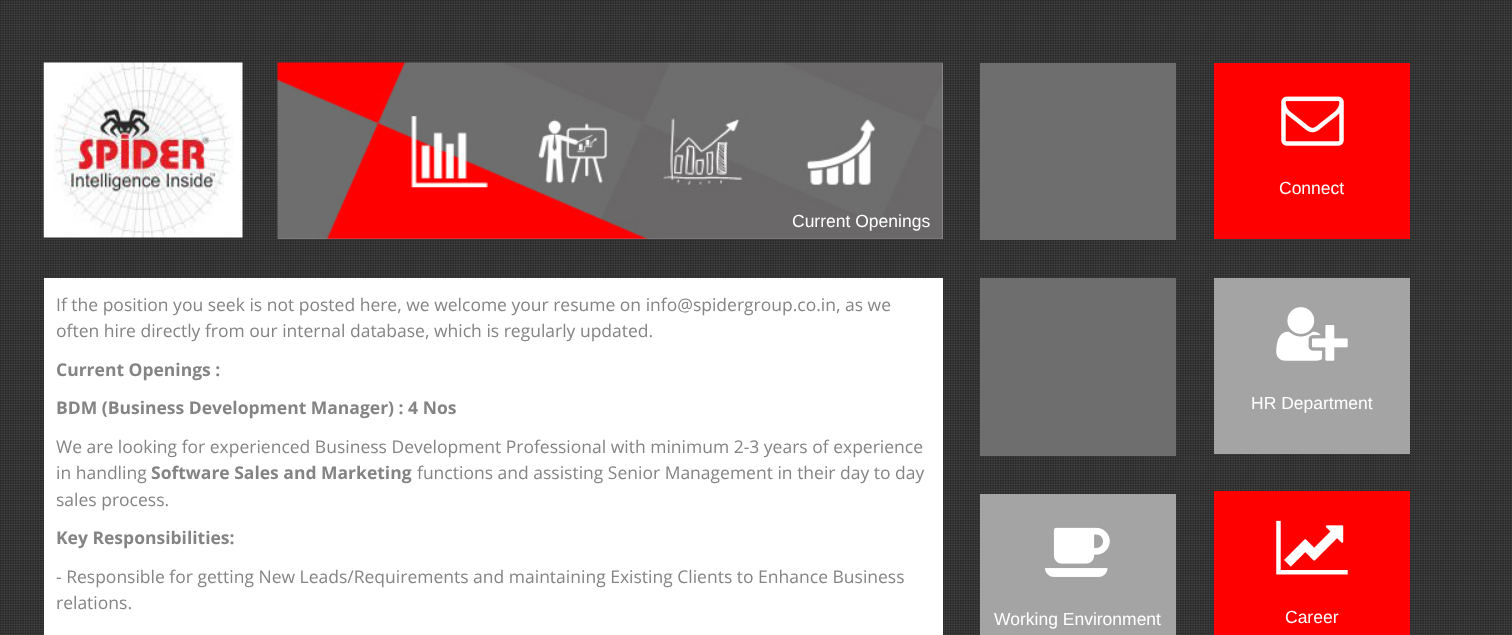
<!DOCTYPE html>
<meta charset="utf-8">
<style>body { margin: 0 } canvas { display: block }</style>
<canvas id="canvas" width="1512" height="635"></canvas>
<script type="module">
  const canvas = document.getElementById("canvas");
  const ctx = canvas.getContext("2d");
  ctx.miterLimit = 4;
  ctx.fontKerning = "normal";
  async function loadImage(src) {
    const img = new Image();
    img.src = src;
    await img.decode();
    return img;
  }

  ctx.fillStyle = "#585858";
  ctx.fillRect(0, 0, 1512, 635);
  ctx.drawImage(await loadImage("img1.png"), 0, 0, 1512, 635);
  ctx.drawImage(await loadImage("img2.png"), 43, 62, 200, 176);
  ctx.fillStyle = "#6e6e6e";
  ctx.fillRect(980, 63, 196, 177);
  ctx.fillStyle = "#ff0000";
  ctx.fillRect(1214, 63, 196, 176);
  ctx.drawImage(await loadImage("img3.png"), 1281, 96, 63, 50);
  ctx.font = "17.5px Liberation Sans";
  ctx.fillStyle = "#ffffff";
  ctx.fillText("Connect", 1279, 194);
  ctx.fillStyle = "#a4a4a4";
  ctx.fillRect(278, 63, 665, 176);
  ctx.drawImage(await loadImage("img4.png"), 277, 62, 666, 177);
  ctx.fillStyle = "#ffffff";
  ctx.fillText("Current Openings", 792, 227);
  ctx.fillRect(44, 278, 899, 357);
  ctx.font = "17.5px Open Sans";
  ctx.fillStyle = "#848484";
  ctx.fillText("If the position you seek is not posted here, we welcome your resume on info@spidergroup.co.in, as we", 56, 311);
  ctx.fillText("often hire directly from our internal database, which is regularly updated.", 56, 337);
  ctx.font = "bold 17.5px Open Sans";
  ctx.fillText("Current Openings :", 56, 376);
  ctx.fillText("BDM (Business Development Manager) : 4 Nos", 56, 414);
  ctx.font = "17.5px Open Sans";
  ctx.fillText("We are looking for experienced Business Development Professional with minimum 2-3 years of experience", 56, 453);
  ctx.fillText("in handling", 56, 479);
  ctx.font = "bold 17.5px Open Sans";
  ctx.fillText("Software Sales and Marketing", 151, 479);
  ctx.font = "17.5px Open Sans";
  ctx.fillText("functions and assisting Senior Management in their day to day", 417, 479);
  ctx.fillText("sales process.", 56, 506);
  ctx.font = "bold 17.5px Open Sans";
  ctx.fillText("Key Responsibilities:", 56, 544);
  ctx.font = "17.5px Open Sans";
  ctx.fillText("- Responsible for getting New Leads/Requirements and maintaining Existing Clients to Enhance Business", 56, 583);
  ctx.fillText("relations.", 56, 609);
  ctx.fillStyle = "#6e6e6e";
  ctx.fillRect(980, 278, 196, 178);
  ctx.fillStyle = "#a4a4a4";
  ctx.fillRect(980, 494, 196, 141);
  ctx.drawImage(await loadImage("img5.png"), 1045, 527, 65, 50);
  ctx.font = "17.5px Liberation Sans";
  ctx.fillStyle = "#ffffff";
  ctx.fillText("Working Environment", 994, 625);
  ctx.fillStyle = "#a4a4a4";
  ctx.fillRect(1214, 278, 196, 176);
  ctx.drawImage(await loadImage("img6.png"), 1276, 307, 72, 54);
  ctx.fillStyle = "#ffffff";
  ctx.fillText("HR Department", 1251, 409);
  ctx.fillStyle = "#ff0000";
  ctx.fillRect(1214, 491, 196, 144);
  ctx.drawImage(await loadImage("img7.png"), 1276, 520, 72, 55);
  ctx.fillStyle = "#ffffff";
  ctx.fillText("Career", 1285, 623);
</script>
